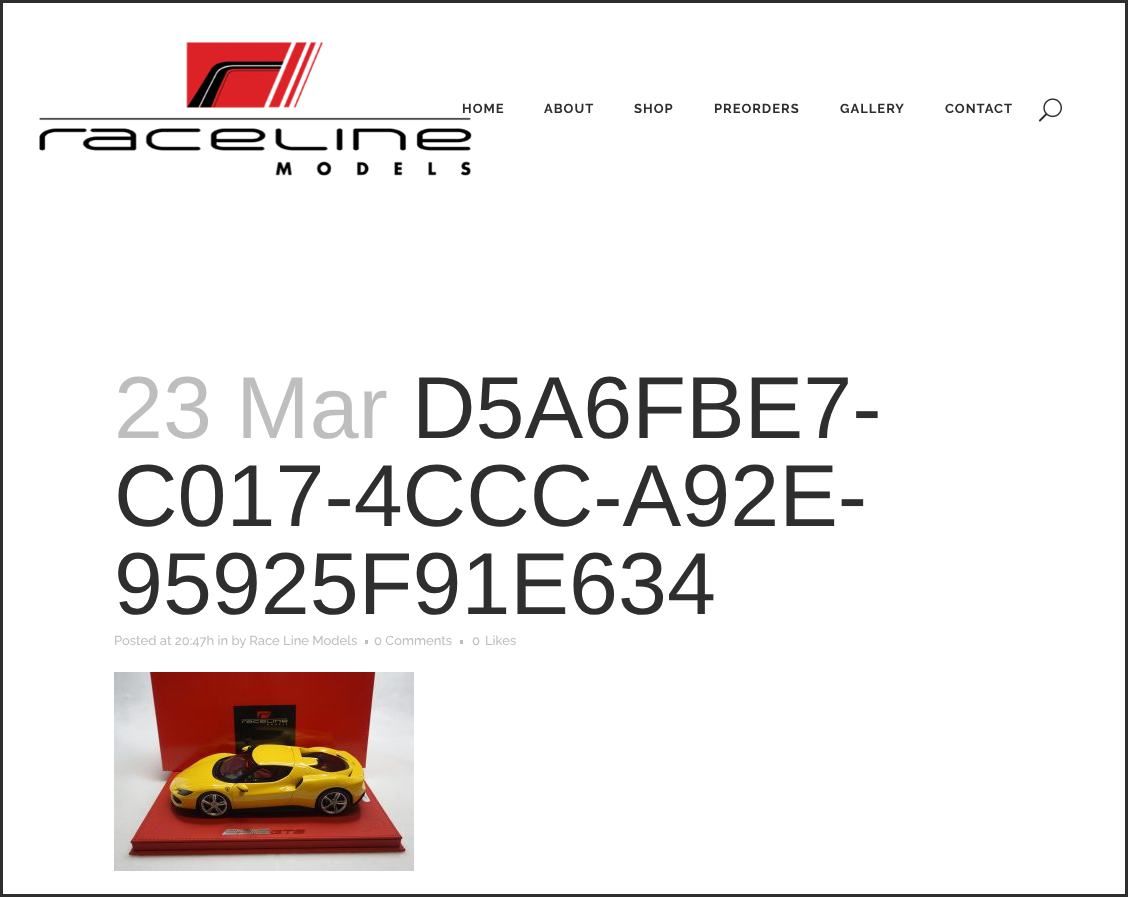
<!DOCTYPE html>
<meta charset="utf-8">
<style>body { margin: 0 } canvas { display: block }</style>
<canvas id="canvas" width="1128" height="897"></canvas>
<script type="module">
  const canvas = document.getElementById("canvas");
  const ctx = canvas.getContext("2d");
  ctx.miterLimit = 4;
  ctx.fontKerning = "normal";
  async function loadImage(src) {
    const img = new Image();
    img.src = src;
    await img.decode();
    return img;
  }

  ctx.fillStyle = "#ffffff";
  ctx.fillRect(0, 0, 1128, 897);
  ctx.drawImage(await loadImage("img1.png"), 39, 42, 433, 134);
  ctx.letterSpacing = "1px";
  ctx.font = "bold 13px Raleway";
  ctx.fillStyle = "#2e2e2e";
  ctx.fillText("HOME", 462, 113);
  ctx.fillText("ABOUT", 544, 113);
  ctx.fillText("SHOP", 634, 113);
  ctx.fillText("PREORDERS", 714, 113);
  ctx.fillText("GALLERY", 840, 113);
  ctx.fillText("CONTACT", 945, 113);
  ctx.drawImage(await loadImage("img2.png"), 1038, 98, 24, 24);
  ctx.fillRect(0, 0, 3, 897);
  ctx.fillRect(1125, 0, 3, 897);
  ctx.fillRect(0, 0, 1128, 3);
  ctx.letterSpacing = "0px";
  ctx.font = "88px Liberation Sans";
  ctx.fillStyle = "#bebebe";
  ctx.fillText("23 Mar", 114, 438);
  ctx.fillStyle = "#2e2e2e";
  ctx.fillText("D5A6FBE7-", 412, 438);
  ctx.fillText("C017-4CCC-A92E-", 114, 526);
  ctx.fillText("95925F91E634", 114, 614);
  ctx.font = "500 13px Raleway";
  ctx.fillStyle = "#bebebe";
  ctx.fillText("Posted at 20:47h in by Race Line Models", 114, 645);
  ctx.fillRect(365, 640, 3, 4);
  ctx.fillText("0 Comments", 374, 645);
  ctx.fillRect(460, 640, 3, 4);
  ctx.fillText("0", 472, 645);
  ctx.fillText("Likes", 485, 645);
  ctx.drawImage(await loadImage("img3.png"), 114, 672, 300, 199);
  ctx.fillStyle = "#2e2e2e";
  ctx.fillRect(0, 894, 1128, 3);
</script>
